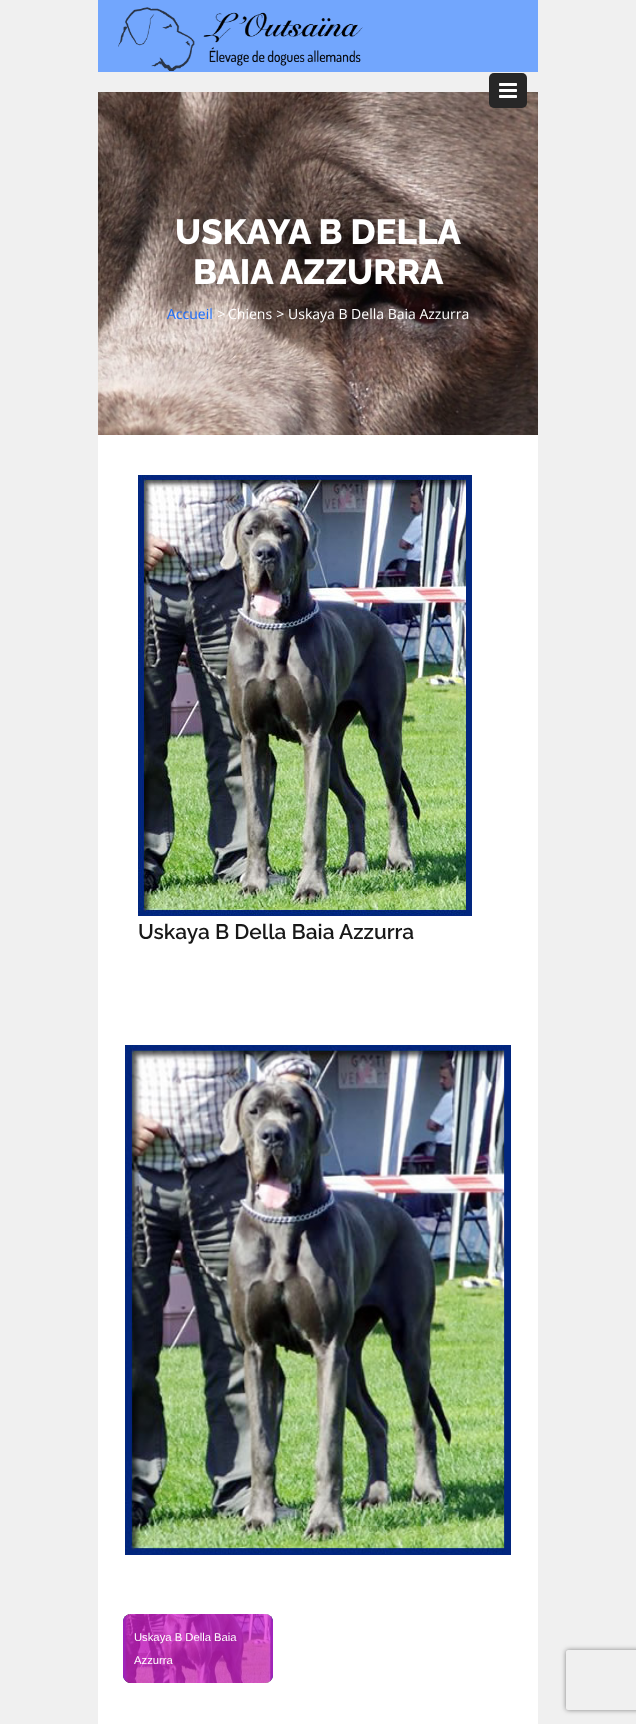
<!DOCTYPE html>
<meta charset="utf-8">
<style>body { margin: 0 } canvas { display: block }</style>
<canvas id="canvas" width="636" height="1724"></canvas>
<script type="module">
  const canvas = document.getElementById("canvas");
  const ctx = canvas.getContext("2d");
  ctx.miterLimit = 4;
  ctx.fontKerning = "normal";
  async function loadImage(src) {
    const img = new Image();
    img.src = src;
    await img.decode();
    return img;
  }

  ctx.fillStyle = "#f0f0f0";
  ctx.fillRect(0, 0, 636, 1724);
  ctx.fillStyle = "#72a6fd";
  ctx.fillRect(98, 0, 440, 72);
  ctx.drawImage(await loadImage("img1.png"), 118, 7, 245, 64);
  ctx.drawImage(await loadImage("img3.png"), 98, 92, 440, 343);
  ctx.fillStyle = "#272727";
  ctx.beginPath();
  ctx.roundRect(489, 73, 38, 35, 5);
  ctx.fill();
  ctx.drawImage(await loadImage("img2.png"), 499, 83, 18, 15);
  ctx.font = "800 35px Raleway";
  ctx.fillStyle = "#ffffff";
  ctx.fillText("USKAYA B DELLA", 175, 244);
  ctx.fillText("BAIA AZZURRA", 193, 284);
  ctx.font = "14px Open Sans";
  ctx.fillStyle = "#1c6fff";
  ctx.fillText("Accueil", 167, 319);
  ctx.font = "italic 14px Open Sans";
  ctx.fillStyle = "#ffffff";
  ctx.fillText(">", 217, 319);
  ctx.font = "14px Open Sans";
  ctx.fillText("Chiens", 228, 319);
  ctx.font = "italic 14px Open Sans";
  ctx.fillText(">", 276, 319);
  ctx.font = "14px Open Sans";
  ctx.fillText("Uskaya B Della Baia Azzurra", 288, 319);
  ctx.fillRect(98, 435, 440, 1289);
  ctx.drawImage(await loadImage("img4.png"), 138, 475, 334, 441);
  ctx.font = "600 21px Raleway";
  ctx.fillStyle = "#181818";
  ctx.fillText("Uskaya B Della Baia Azzurra", 138, 939);
  ctx.drawImage(await loadImage("img5.png"), 125, 1045, 386, 510);
  ctx.fillStyle = "#777777";
  ctx.beginPath();
  ctx.roundRect(123, 1614, 150, 69, 8);
  ctx.fill();
  ctx.drawImage(await loadImage("img6.png"), 123, 1614, 150, 69);
  ctx.fillStyle = "rgba(226, 36, 217, 0.7)";
  ctx.beginPath();
  ctx.roundRect(123, 1614, 150, 69, 8);
  ctx.fill();
  ctx.font = "11.25px Liberation Sans";
  ctx.fillStyle = "#ffffff";
  ctx.fillText("Uskaya B Della Baia", 134, 1641);
  ctx.fillText("Azzurra", 134, 1664);
  ctx.save();
  ctx.beginPath();
  ctx.moveTo(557, 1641);
  ctx.lineTo(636, 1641);
  ctx.lineTo(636, 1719);
  ctx.lineTo(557, 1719);
  ctx.closePath();
  ctx.moveTo(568, 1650);
  ctx.lineTo(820, 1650);
  ctx.bezierCurveTo(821, 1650, 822, 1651, 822, 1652);
  ctx.lineTo(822, 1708);
  ctx.bezierCurveTo(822, 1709, 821, 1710, 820, 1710);
  ctx.lineTo(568, 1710);
  ctx.bezierCurveTo(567, 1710, 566, 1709, 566, 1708);
  ctx.lineTo(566, 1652);
  ctx.bezierCurveTo(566, 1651, 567, 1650, 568, 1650);
  ctx.closePath();
  ctx.clip("evenodd");
  ctx.fillStyle = "#808080";
  ctx.filter = "blur(2.5px)";
  ctx.beginPath();
  ctx.roundRect(566, 1650, 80, 60, 2);
  ctx.fill();
  ctx.filter = "none";
  ctx.restore();
</script>
